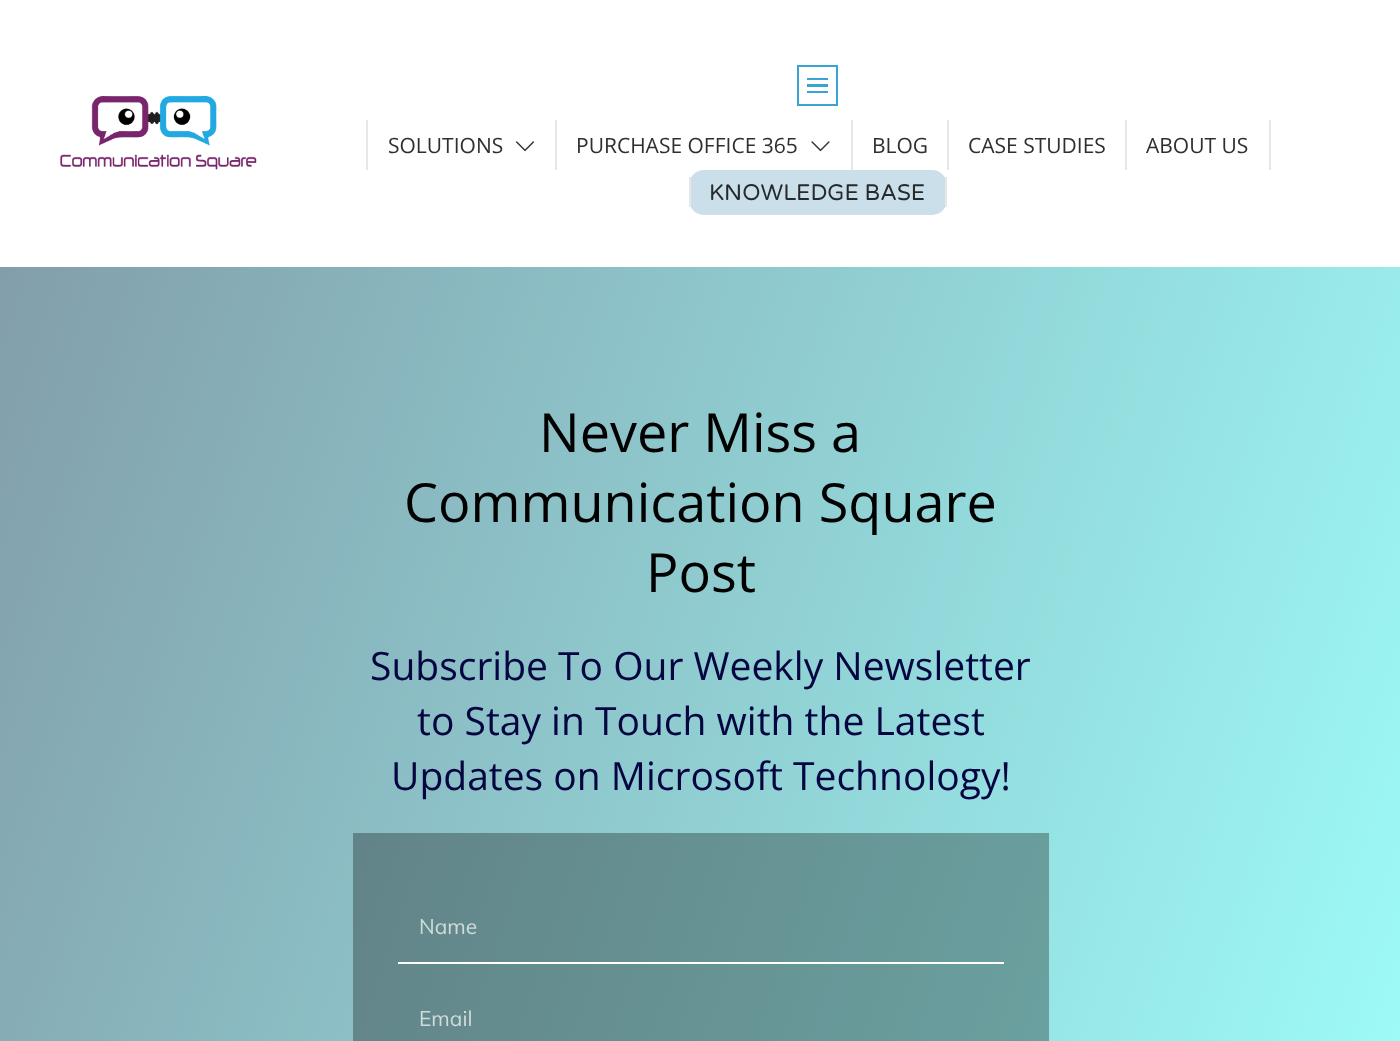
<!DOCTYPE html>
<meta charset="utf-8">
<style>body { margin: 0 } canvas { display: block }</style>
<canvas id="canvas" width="1400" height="1041"></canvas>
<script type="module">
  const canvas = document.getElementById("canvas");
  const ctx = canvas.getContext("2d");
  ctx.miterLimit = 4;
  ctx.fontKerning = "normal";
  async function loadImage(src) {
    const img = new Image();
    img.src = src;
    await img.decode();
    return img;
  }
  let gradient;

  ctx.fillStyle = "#ffffff";
  ctx.fillRect(0, 0, 1400, 1041);
  ctx.drawImage(await loadImage("img1.png"), 60, 96, 197, 74);
  ctx.fillStyle = "#39a3d1";
  ctx.fillRect(807, 78, 21, 2);
  ctx.fillRect(807, 84, 21, 3);
  ctx.fillRect(807, 91, 21, 2);
  ctx.save();
  ctx.beginPath();
  ctx.rect(797, 65, 42, 42);
  ctx.clip();
  ctx.beginPath();
  ctx.moveTo(796, 64);
  ctx.lineTo(796, 106);
  ctx.lineTo(838, 106);
  ctx.lineTo(838, 64);
  ctx.closePath();
  ctx.moveTo(836, 104);
  ctx.lineTo(799, 104);
  ctx.lineTo(799, 67);
  ctx.lineTo(836, 67);
  ctx.closePath();
  ctx.fill();
  ctx.restore();
  ctx.fillStyle = "#e7e7e7";
  ctx.fillRect(555, 120, 2, 50);
  ctx.fillRect(366, 120, 2, 50);
  ctx.font = "21px Open Sans";
  ctx.fillStyle = "#2f2f2f";
  ctx.fillText("SOLUTIONS", 388, 153);
  ctx.drawImage(await loadImage("img2.png"), 515, 141, 20, 11);
  ctx.fillStyle = "#e7e7e7";
  ctx.fillRect(851, 120, 2, 50);
  ctx.fillStyle = "#2f2f2f";
  ctx.fillText("PURCHASE OFFICE 365", 576, 153);
  ctx.drawImage(await loadImage("img3.png"), 811, 141, 19, 11);
  ctx.fillStyle = "#e7e7e7";
  ctx.fillRect(947, 120, 2, 50);
  ctx.fillStyle = "#2f2f2f";
  ctx.fillText("BLOG", 872, 153);
  ctx.fillStyle = "#e7e7e7";
  ctx.fillRect(1125, 120, 2, 50);
  ctx.fillStyle = "#2f2f2f";
  ctx.fillText("CASE STUDIES", 968, 153);
  ctx.fillStyle = "#e7e7e7";
  ctx.fillRect(1269, 120, 2, 50);
  ctx.fillStyle = "#2f2f2f";
  ctx.fillText("ABOUT US", 1146, 153);
  ctx.save();
  ctx.beginPath();
  ctx.roundRect(689, 170, 258, 45, 15);
  ctx.clip();
  ctx.fillStyle = "#cadfe9";
  ctx.fillRect(690, 170, 255, 45);
  ctx.restore();
  ctx.fillStyle = "#e7e7e7";
  ctx.fillRect(945, 177, 2, 30);
  ctx.fillRect(689, 177, 2, 30);
  ctx.font = "22.5px Varela Round";
  ctx.fillStyle = "#272a2b";
  ctx.fillText("KNOWLEDGE BASE", 709, 200);
  gradient = ctx.createLinearGradient(-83, 509, 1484, 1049);
  gradient.addColorStop(0, "#829eaa");
  gradient.addColorStop(1, "#9efffa");
  ctx.fillStyle = gradient;
  ctx.fillRect(0, 267, 1400, 774);
  gradient = ctx.createLinearGradient(-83, 509, 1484, 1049);
  gradient.addColorStop(0, "#5c6f77");
  gradient.addColorStop(1, "#6fb1ad");
  ctx.fillStyle = gradient;
  ctx.fillRect(353, 833, 696, 208);
  ctx.font = "54px Open Sans";
  ctx.fillStyle = "#000000";
  ctx.fillText("Never Miss a", 539, 452);
  ctx.fillText("Communication Square", 404, 522);
  ctx.fillText("Post", 646, 592);
  ctx.font = "39px Open Sans";
  ctx.fillStyle = "#050541";
  ctx.fillText("Subscribe To Our Weekly Newsletter", 370, 680);
  ctx.fillText("to Stay in Touch with the Latest", 417, 735);
  ctx.fillText("Updates on Microsoft Technology!", 391, 790);
  ctx.fillStyle = "#ffffff";
  ctx.fillRect(398, 962, 606, 2);
  ctx.font = "21px Muli";
  ctx.fillStyle = "#d0dbdc";
  ctx.fillText("Name", 419, 934);
  ctx.fillText("Email", 419, 1026);
</script>
